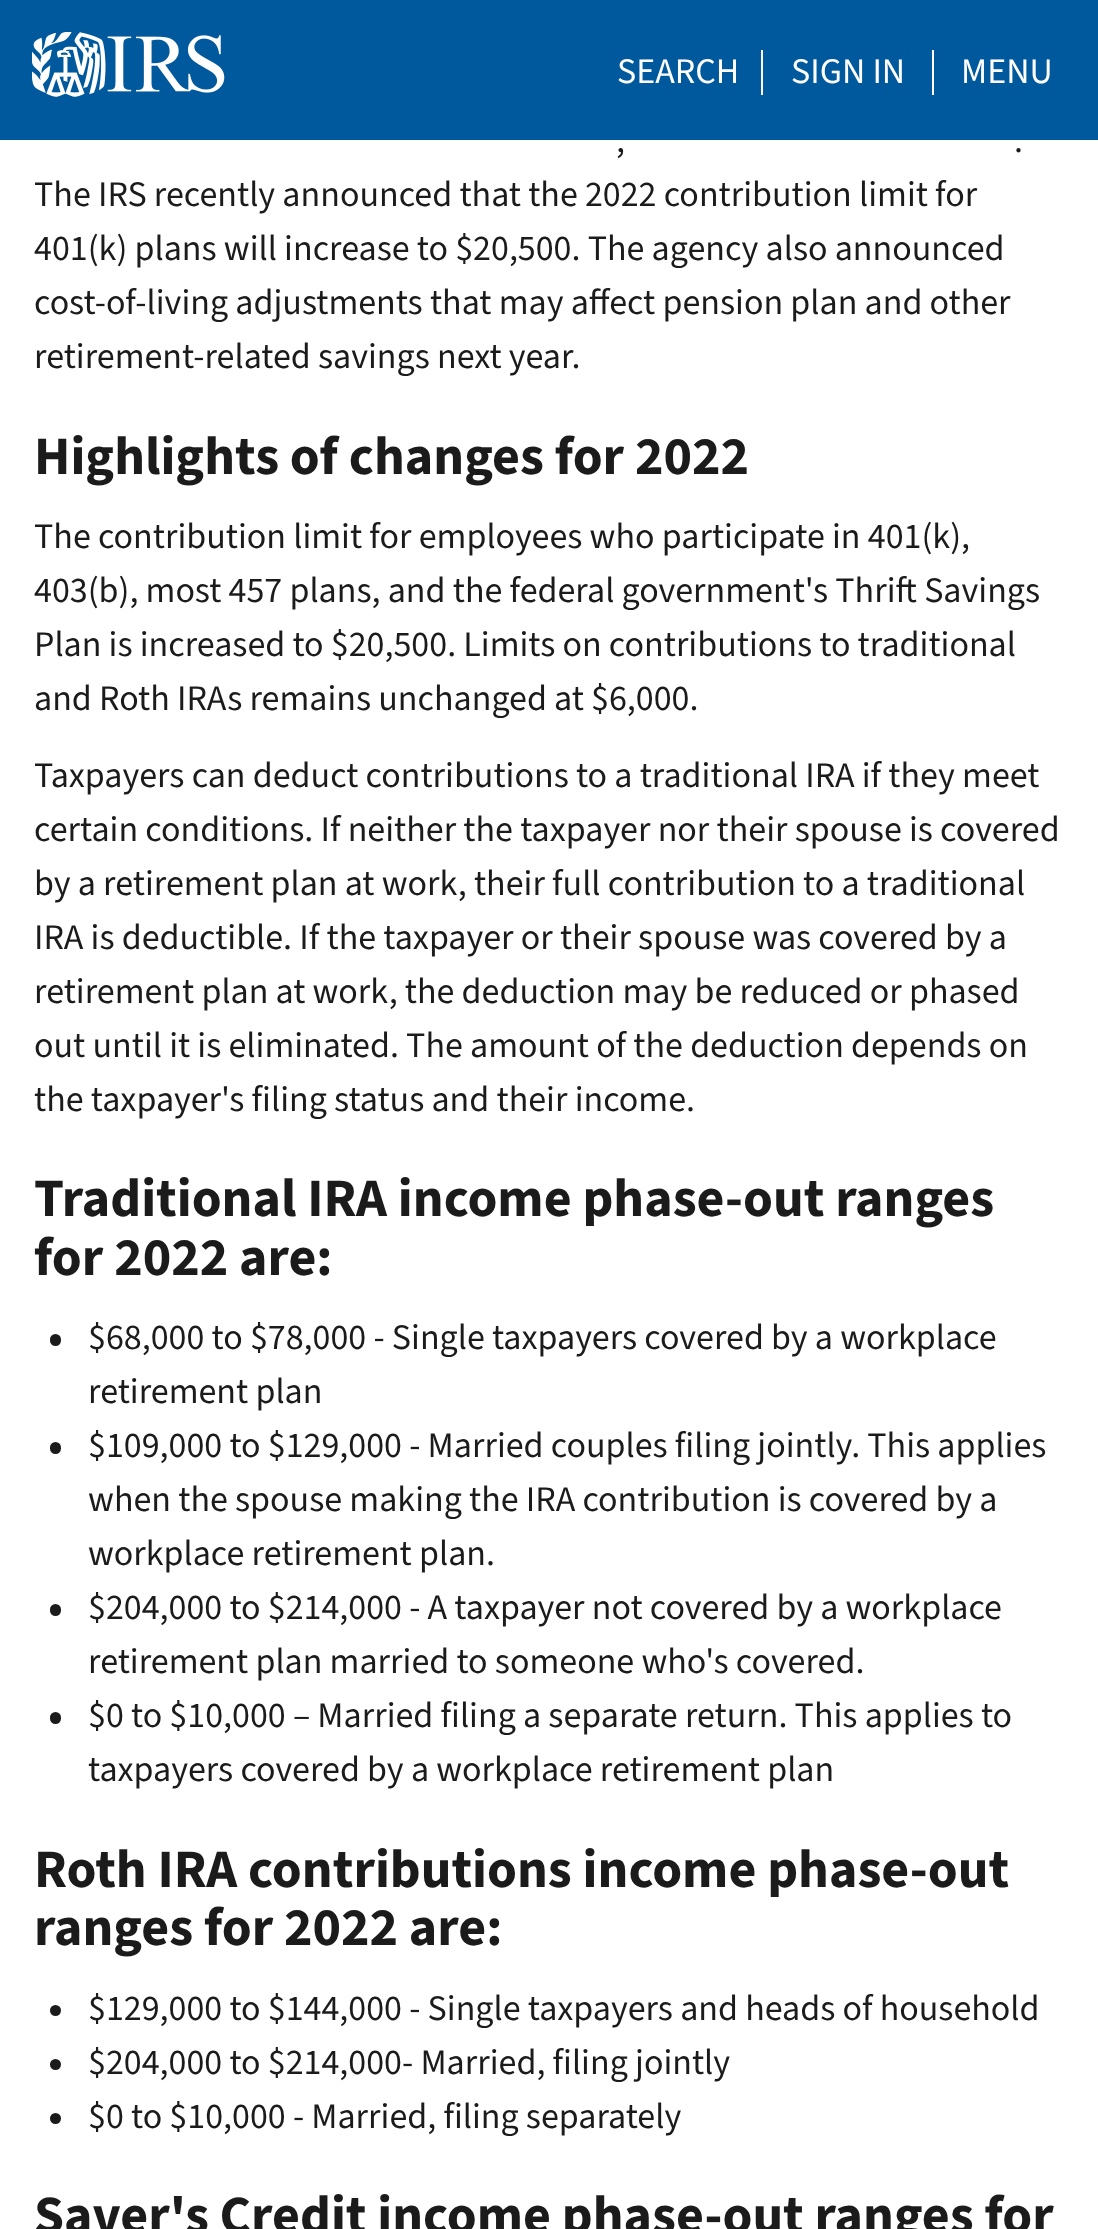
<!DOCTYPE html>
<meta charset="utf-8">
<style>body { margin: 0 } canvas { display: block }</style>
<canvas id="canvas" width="1098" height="2229"></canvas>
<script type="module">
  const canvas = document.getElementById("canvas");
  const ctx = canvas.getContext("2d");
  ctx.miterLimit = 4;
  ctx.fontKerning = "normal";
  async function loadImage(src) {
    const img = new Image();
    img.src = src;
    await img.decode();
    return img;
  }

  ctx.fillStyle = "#ffffff";
  ctx.fillRect(0, 0, 1098, 2229);
  ctx.fillStyle = "#00599c";
  ctx.fillRect(0, 0, 1098, 140);
  ctx.drawImage(await loadImage("img1.png"), 32, 32, 193, 65);
  ctx.fillStyle = "#ffffff";
  ctx.fillRect(761, 50, 2, 45);
  ctx.font = "36px 'Source Sans 3'";
  ctx.fillText("SEARCH", 617, 83);
  ctx.fillRect(932, 50, 2, 45);
  ctx.fillText("SIGN IN", 791, 83);
  ctx.fillText("MENU", 961, 83);
  ctx.fillStyle = "#1b1b1b";
  ctx.fillText(",", 616, 152);
  ctx.fillText(".", 1014, 152);
  ctx.fillText("The IRS recently announced that the 2022 contribution limit for", 34, 206);
  ctx.fillText("401(k) plans will increase to $20,500. The agency also announced", 34, 260);
  ctx.fillText("cost‑of‑living adjustments that may affect pension plan and other", 34, 314);
  ctx.fillText("retirement-related savings next year.", 34, 368);
  ctx.font = "bold 54px 'Source Sans 3'";
  ctx.fillText("Highlights of changes for 2022", 34, 474);
  ctx.font = "36px 'Source Sans 3'";
  ctx.fillText("The contribution limit for employees who participate in 401(k),", 34, 548);
  ctx.fillText("403(b), most 457 plans, and the federal government's Thrift Savings", 34, 602);
  ctx.fillText("Plan is increased to $20,500. Limits on contributions to traditional", 34, 656);
  ctx.fillText("and Roth IRAs remains unchanged at $6,000.", 34, 710);
  ctx.fillText("Taxpayers can deduct contributions to a traditional IRA if they meet", 34, 787);
  ctx.fillText("certain conditions. If neither the taxpayer nor their spouse is covered", 34, 841);
  ctx.fillText("by a retirement plan at work, their full contribution to a traditional", 34, 895);
  ctx.fillText("IRA is deductible. If the taxpayer or their spouse was covered by a", 34, 949);
  ctx.fillText("retirement plan at work, the deduction may be reduced or phased", 34, 1003);
  ctx.fillText("out until it is eliminated. The amount of the deduction depends on", 34, 1057);
  ctx.fillText("the taxpayer's filing status and their income.", 34, 1111);
  ctx.font = "bold 54px 'Source Sans 3'";
  ctx.fillText("Traditional IRA income phase-out ranges", 34, 1216);
  ctx.fillText("for 2022 are:", 34, 1275);
  ctx.beginPath();
  ctx.roundRect(50, 1334, 11, 12, 5.5);
  ctx.fill();
  ctx.font = "36px 'Source Sans 3'";
  ctx.fillText("$68,000 to $78,000 - Single taxpayers covered by a workplace", 88, 1349);
  ctx.fillText("retirement plan", 88, 1403);
  ctx.beginPath();
  ctx.roundRect(50, 1442, 11, 12, 5.5);
  ctx.fill();
  ctx.fillText("$109,000 to $129,000 - Married couples filing jointly. This applies", 88, 1457);
  ctx.fillText("when the spouse making the IRA contribution is covered by a", 88, 1511);
  ctx.fillText("workplace retirement plan.", 88, 1565);
  ctx.beginPath();
  ctx.roundRect(50, 1604, 11, 12, 5.5);
  ctx.fill();
  ctx.fillText("$204,000 to $214,000 - A taxpayer not covered by a workplace", 88, 1619);
  ctx.fillText("retirement plan married to someone who's covered.", 88, 1673);
  ctx.beginPath();
  ctx.roundRect(50, 1712, 11, 12, 5.5);
  ctx.fill();
  ctx.fillText("$0 to $10,000 – Married filing a separate return. This applies to", 88, 1727);
  ctx.fillText("taxpayers covered by a workplace retirement plan", 88, 1781);
  ctx.font = "bold 54px 'Source Sans 3'";
  ctx.fillText("Roth IRA contributions income phase-out", 34, 1887);
  ctx.fillText("ranges for 2022 are:", 34, 1945);
  ctx.beginPath();
  ctx.arc(55.5, 2010.5, 5.5, 0, Math.PI * 2);
  ctx.fill();
  ctx.font = "36px 'Source Sans 3'";
  ctx.fillText("$129,000 to $144,000 - Single taxpayers and heads of household", 88, 2020);
  ctx.beginPath();
  ctx.arc(55.5, 2064.5, 5.5, 0, Math.PI * 2);
  ctx.fill();
  ctx.fillText("$204,000 to $214,000- Married, filing jointly", 88, 2074);
  ctx.beginPath();
  ctx.arc(55.5, 2118.5, 5.5, 0, Math.PI * 2);
  ctx.fill();
  ctx.fillText("$0 to $10,000 - Married, filing separately", 88, 2128);
  ctx.font = "bold 54px 'Source Sans 3'";
  ctx.fillText("Saver's Credit income phase-out ranges for", 34, 2233);
</script>
